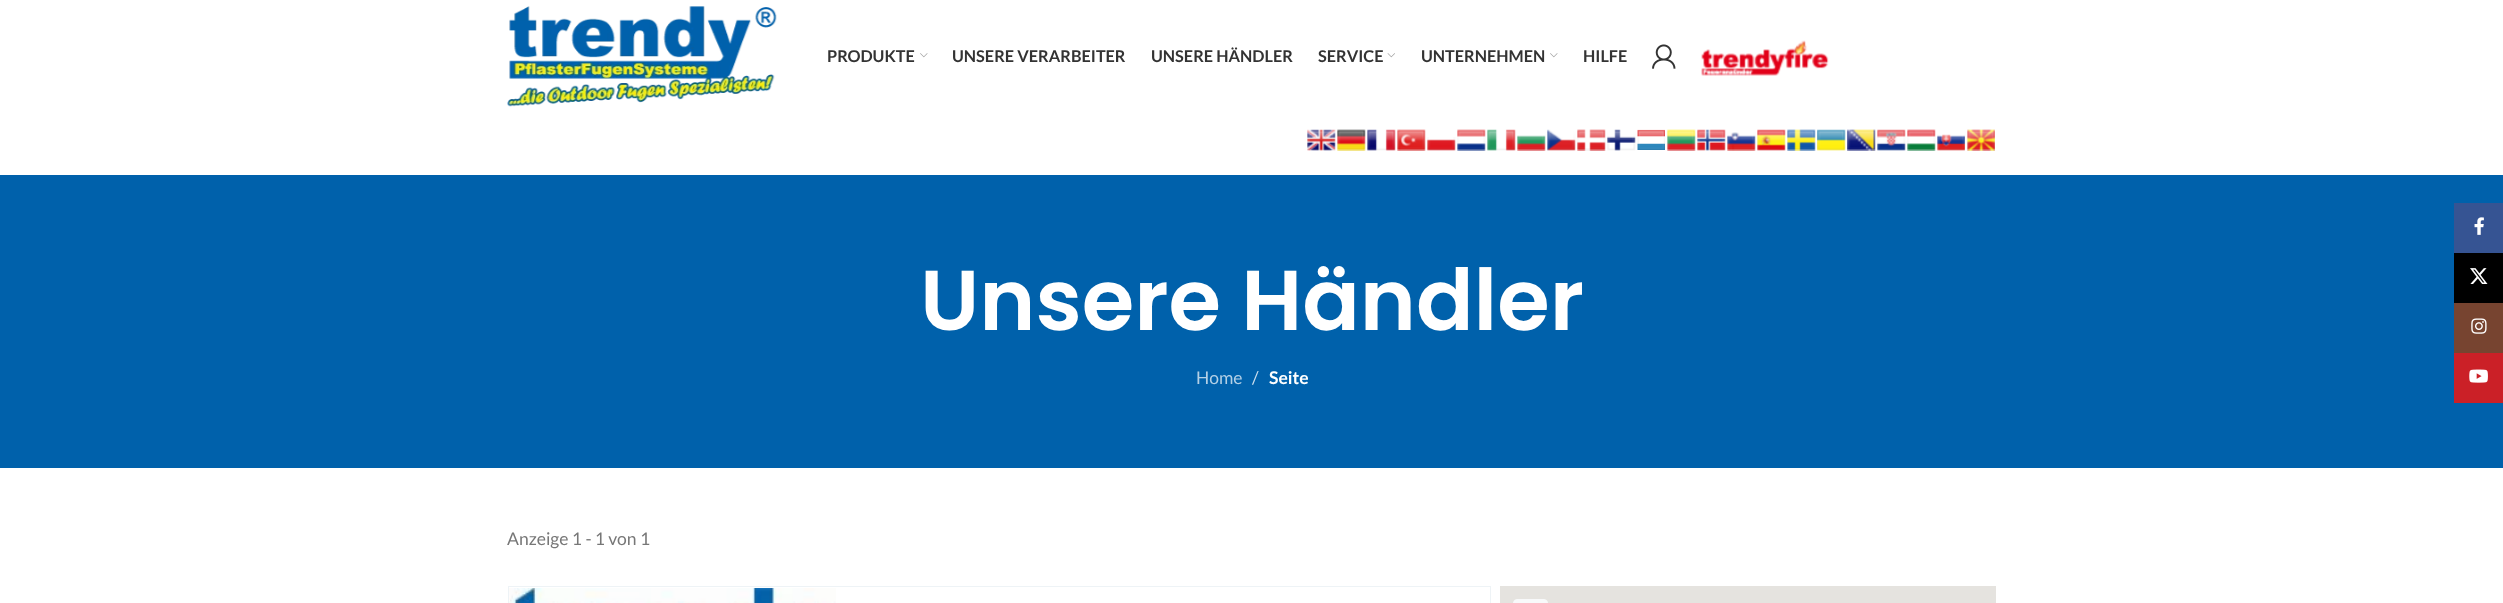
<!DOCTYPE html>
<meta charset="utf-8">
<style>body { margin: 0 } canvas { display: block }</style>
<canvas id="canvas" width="2503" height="603"></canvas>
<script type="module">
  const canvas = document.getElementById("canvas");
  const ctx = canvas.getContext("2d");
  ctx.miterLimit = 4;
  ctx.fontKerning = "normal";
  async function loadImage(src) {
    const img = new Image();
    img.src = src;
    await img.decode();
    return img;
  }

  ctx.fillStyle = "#ffffff";
  ctx.fillRect(0, 0, 2503, 603);
  ctx.drawImage(await loadImage("img1.png"), 507, 6, 270, 101);
  ctx.font = "bold 16.25px Lato";
  ctx.fillStyle = "#333333";
  ctx.fillText("PRODUKTE", 827, 62);
  ctx.drawImage(await loadImage("img2.png"), 920, 53, 8, 5);
  ctx.fillText("UNSERE VERARBEITER", 952, 62);
  ctx.fillText("UNSERE HÄNDLER", 1151, 62);
  ctx.fillText("SERVICE", 1318, 62);
  ctx.drawImage(await loadImage("img3.png"), 1387, 53, 8, 5);
  ctx.fillText("UNTERNEHMEN", 1421, 62);
  ctx.drawImage(await loadImage("img2.png"), 1550, 53, 8, 5);
  ctx.fillText("HILFE", 1583, 62);
  ctx.drawImage(await loadImage("img4.png"), 1652, 44, 24, 25);
  ctx.drawImage(await loadImage("img5.png"), 1701, 40, 128, 36);
  ctx.drawImage(await loadImage("img6.png"), 1307, 129, 29, 22);
  ctx.drawImage(await loadImage("img7.png"), 1337, 129, 29, 22);
  ctx.drawImage(await loadImage("img8.png"), 1367, 129, 29, 22);
  ctx.drawImage(await loadImage("img9.png"), 1397, 129, 29, 22);
  ctx.drawImage(await loadImage("img10.png"), 1427, 137, 29, 14);
  ctx.drawImage(await loadImage("img11.png"), 1457, 129, 29, 22);
  ctx.drawImage(await loadImage("img12.png"), 1487, 129, 29, 22);
  ctx.drawImage(await loadImage("img13.png"), 1517, 135, 29, 16);
  ctx.drawImage(await loadImage("img14.png"), 1547, 129, 29, 22);
  ctx.drawImage(await loadImage("img15.png"), 1577, 129, 29, 22);
  ctx.drawImage(await loadImage("img16.png"), 1607, 129, 29, 22);
  ctx.drawImage(await loadImage("img17.png"), 1637, 129, 28, 21);
  ctx.drawImage(await loadImage("img18.png"), 1667, 129, 29, 22);
  ctx.drawImage(await loadImage("img19.png"), 1697, 129, 29, 22);
  ctx.drawImage(await loadImage("img20.png"), 1727, 132, 29, 19);
  ctx.drawImage(await loadImage("img21.png"), 1757, 129, 29, 22);
  ctx.drawImage(await loadImage("img22.png"), 1787, 129, 29, 22);
  ctx.drawImage(await loadImage("img23.png"), 1817, 129, 29, 22);
  ctx.drawImage(await loadImage("img24.png"), 1847, 129, 29, 22);
  ctx.drawImage(await loadImage("img25.png"), 1877, 129, 29, 22);
  ctx.drawImage(await loadImage("img26.png"), 1907, 129, 29, 22);
  ctx.drawImage(await loadImage("img27.png"), 1937, 134, 28, 17);
  ctx.drawImage(await loadImage("img28.png"), 1967, 129, 28, 22);
  ctx.fillStyle = "#0061ab";
  ctx.fillRect(0, 175, 2503, 293);
  ctx.font = "600 85px Poppins";
  ctx.fillStyle = "#ffffff";
  ctx.fillText("Unsere Händler", 920, 330);
  ctx.font = "17.5px Lato";
  ctx.fillStyle = "#b3d0e6";
  ctx.fillText("Home", 1196, 384);
  ctx.fillStyle = "#ccdfee";
  ctx.fillText("/", 1252, 384);
  ctx.font = "bold 17.5px Lato";
  ctx.fillStyle = "#ffffff";
  ctx.fillText("Seite", 1269, 384);
  ctx.font = "17.5px Lato";
  ctx.fillStyle = "#777777";
  ctx.fillText("Anzeige 1 - 1 von 1", 507, 545);
  ctx.strokeStyle = "#eef3f6";
  ctx.strokeRect(508.5, 586.5, 982, 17);
  ctx.drawImage(await loadImage("img29.png"), 509, 588, 327, 15);
  ctx.fillStyle = "#e5e3df";
  ctx.fillRect(1500, 586, 496, 17);
  ctx.fillStyle = "#f8f9fa";
  ctx.beginPath();
  ctx.roundRect(1513.5, 599.5, 34, 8, 3.5);
  ctx.fill();
  ctx.strokeStyle = "#f8f9fa";
  ctx.stroke();
  ctx.fillStyle = "#365493";
  ctx.fillRect(2454, 203, 49, 50);
  ctx.drawImage(await loadImage("img30.png"), 2474, 217, 10, 18);
  ctx.fillStyle = "#000000";
  ctx.fillRect(2454, 253, 49, 50);
  ctx.drawImage(await loadImage("img31.png"), 2470, 268, 18, 16);
  ctx.fillStyle = "#774430";
  ctx.fillRect(2454, 303, 49, 50);
  ctx.drawImage(await loadImage("img32.png"), 2471, 318, 16, 16);
  ctx.fillStyle = "#cb2027";
  ctx.fillRect(2454, 353, 49, 50);
  ctx.drawImage(await loadImage("img33.png"), 2469, 369, 19, 14);
</script>
